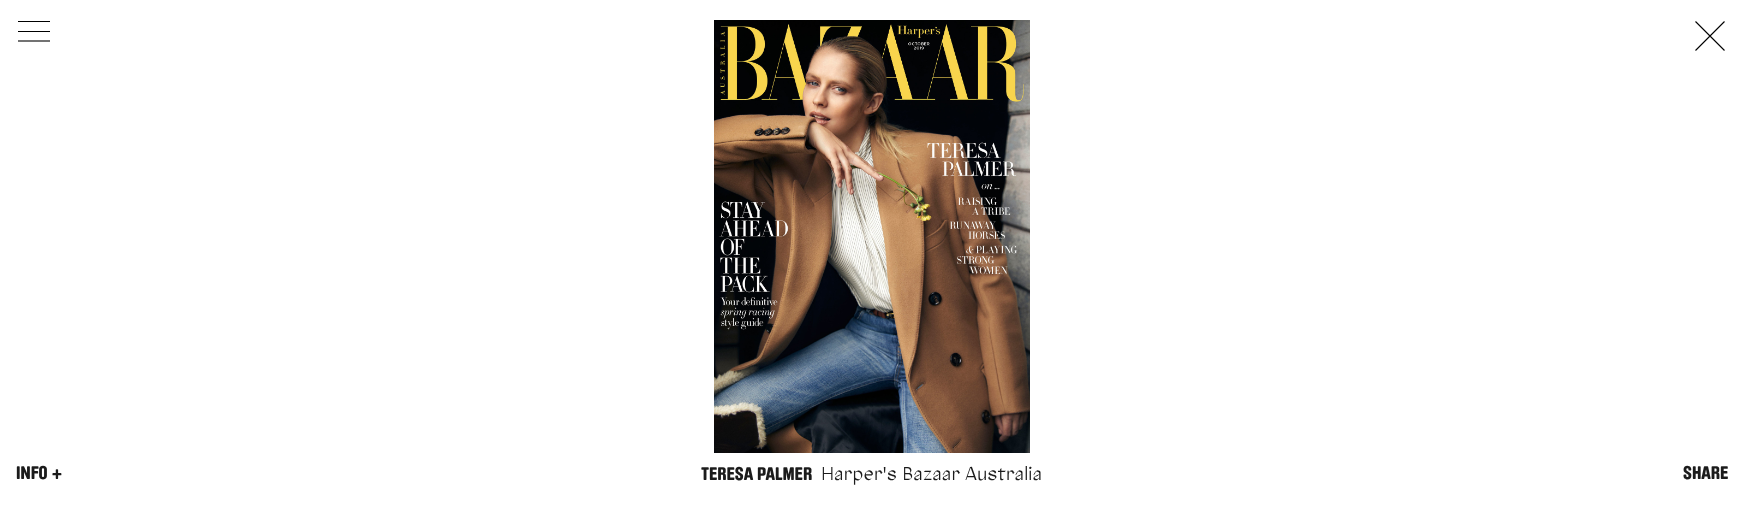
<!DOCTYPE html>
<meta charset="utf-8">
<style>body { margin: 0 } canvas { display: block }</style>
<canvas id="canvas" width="1744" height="509"></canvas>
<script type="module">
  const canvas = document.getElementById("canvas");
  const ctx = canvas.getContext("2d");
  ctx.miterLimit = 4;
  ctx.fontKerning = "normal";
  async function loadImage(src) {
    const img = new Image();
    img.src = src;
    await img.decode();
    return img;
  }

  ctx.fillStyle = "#ffffff";
  ctx.fillRect(0, 0, 1744, 509);
  ctx.fillStyle = "#000000";
  ctx.fillRect(18, 21, 32, 1);
  ctx.fillRect(18, 31, 32, 1);
  ctx.beginPath();
  ctx.moveTo(18, 41);
  ctx.lineTo(50, 41);
  ctx.strokeStyle = "#000000";
  ctx.lineWidth = 1.1;
  ctx.stroke();
  ctx.drawImage(await loadImage("img1.png"), 714, 20, 316, 433);
  ctx.beginPath();
  ctx.moveTo(1695.5, 21.5);
  ctx.lineTo(1724.5, 50.5);
  ctx.moveTo(1724.5, 21.5);
  ctx.lineTo(1695.5, 50.5);
  ctx.stroke();
  ctx.font = "18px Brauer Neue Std";
  ctx.fillStyle = "#1b1b1b";
  ctx.fillText("INFO +", 16, 479);
  ctx.fillText("TERESA PALMER", 701, 480);
  ctx.font = "18.5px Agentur";
  ctx.fillText("Harper's Bazaar Australia", 821, 480);
  ctx.font = "18px Brauer Neue Std";
  ctx.fillText("SHARE", 1683, 479);
</script>
